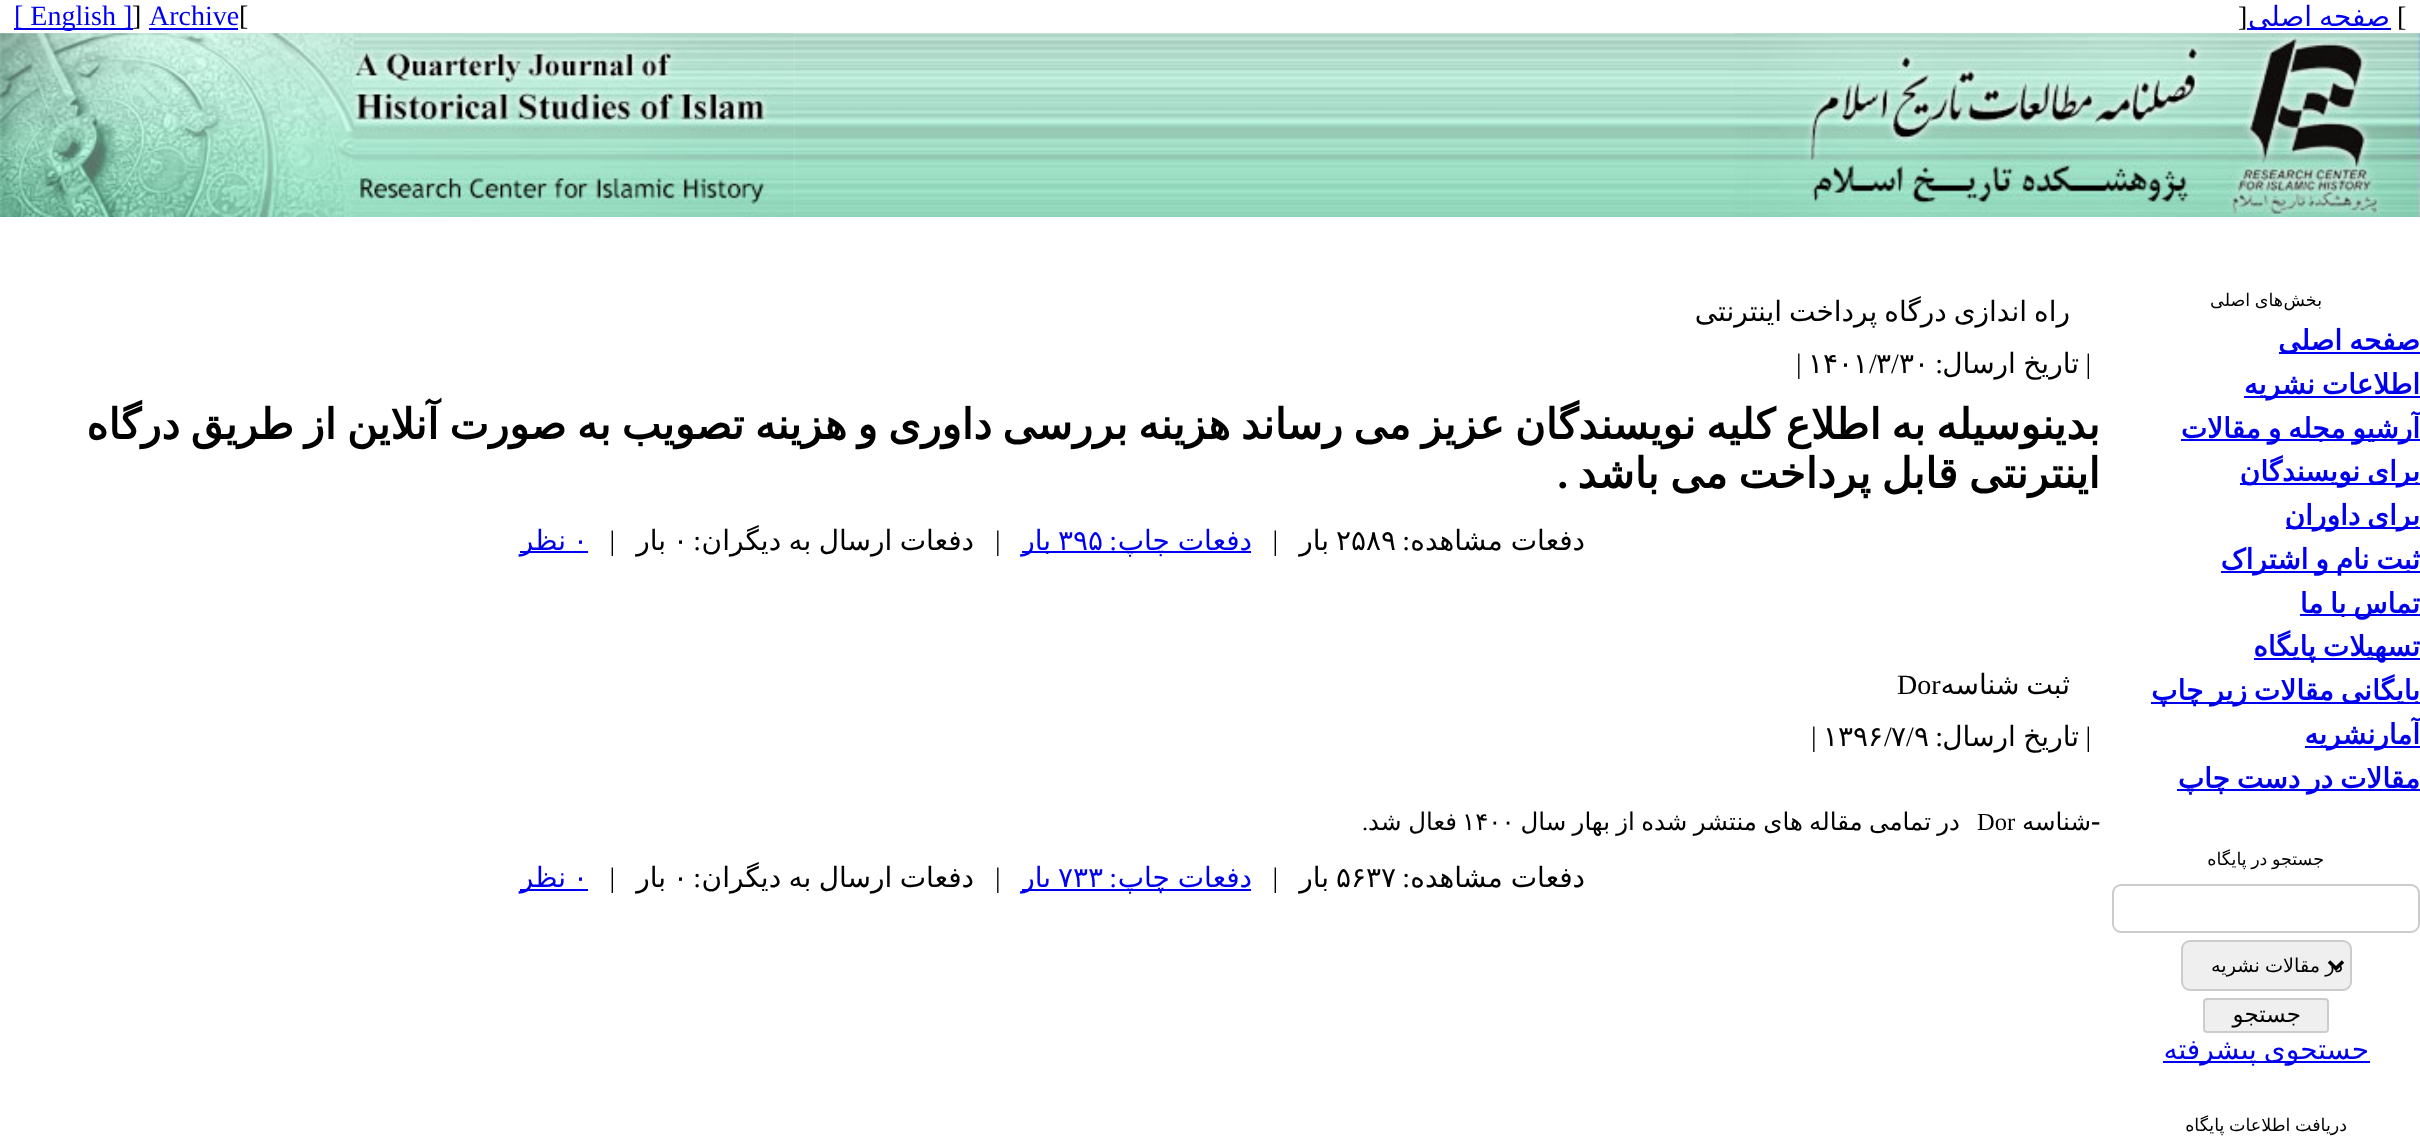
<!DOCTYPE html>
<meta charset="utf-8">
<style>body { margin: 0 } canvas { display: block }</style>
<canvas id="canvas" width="2420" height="1147"></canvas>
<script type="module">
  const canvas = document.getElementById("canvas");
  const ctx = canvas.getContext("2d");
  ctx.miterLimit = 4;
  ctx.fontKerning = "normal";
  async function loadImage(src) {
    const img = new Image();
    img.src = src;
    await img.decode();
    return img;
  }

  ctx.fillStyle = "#ffffff";
  ctx.fillRect(0, 0, 2420, 1147);
  ctx.font = "28px Liberation Serif";
  ctx.fillStyle = "#000000";
  ctx.fillText("[", 2397, 26);
  ctx.fillStyle = "#0000ee";
  ctx.fillRect(2247, 28, 144, 2);
  ctx.wordSpacing = "-2px";
  ctx.direction = "rtl";
  ctx.font = "28px DejaVu Sans";
  ctx.fillText("صفحه اصلی", 2390, 26);
  ctx.wordSpacing = "0px";
  ctx.direction = "ltr";
  ctx.font = "28px Liberation Serif";
  ctx.fillStyle = "#000000";
  ctx.fillText("]", 2238, 26);
  ctx.fillText("[", 239, 25);
  ctx.fillStyle = "#0000ee";
  ctx.fillText("Archive", 149, 25);
  ctx.fillRect(149, 28, 89, 2);
  ctx.fillStyle = "#000000";
  ctx.fillText("]", 132, 25);
  ctx.fillStyle = "#0000ee";
  ctx.fillRect(14, 28, 119, 2);
  ctx.fillText("[ English ]", 14, 25);
  ctx.drawImage(await loadImage("img1.png"), 1751, 33, 669, 184);
  ctx.drawImage(await loadImage("img3.png"), 794, 33, 958, 184);
  ctx.drawImage(await loadImage("img2.png"), 1751, 33, 669, 184);
  ctx.drawImage(await loadImage("img4.png"), 1734, 33, 18, 184);
  ctx.drawImage(await loadImage("img5.png"), 0, 33, 795, 184);
  ctx.drawImage(await loadImage("img6.png"), 0, 33, 795, 184);
  ctx.direction = "rtl";
  ctx.font = "17.5px DejaVu Sans";
  ctx.fillStyle = "#000000";
  ctx.fillText("بخش", 2322, 306);
  ctx.wordSpacing = "-1px";
  ctx.fillText("های اصلی", 2283, 306);
  ctx.fillStyle = "#0000ee";
  ctx.fillRect(2279, 352, 141, 2);
  ctx.wordSpacing = "-2px";
  ctx.font = "bold 28px DejaVu Sans";
  ctx.fillText("صفحه اصلی", 2420, 350);
  ctx.fillRect(2244, 396, 176, 2);
  ctx.fillText("اطلاعات نشریه", 2420, 394);
  ctx.fillRect(2181, 439, 239, 2);
  ctx.fillText("آرشیو مجله و مقالات", 2420, 438);
  ctx.fillRect(2240, 483, 180, 2);
  ctx.fillText("برای نویسندگان", 2420, 481);
  ctx.fillRect(2286, 527, 134, 2);
  ctx.fillText("برای داوران", 2420, 525);
  ctx.fillRect(2221, 571, 199, 2);
  ctx.fillText("ثبت نام و اشتراک", 2420, 569);
  ctx.fillRect(2300, 614, 120, 2);
  ctx.fillText("تماس با ما", 2420, 613);
  ctx.fillRect(2254, 658, 166, 2);
  ctx.fillText("تسهیلات پایگاه", 2420, 656);
  ctx.fillRect(2151, 702, 269, 2);
  ctx.fillText("بایگانی مقالات زیر چاپ", 2420, 700);
  ctx.fillRect(2305, 746, 115, 2);
  ctx.wordSpacing = "0px";
  ctx.fillText("آمارنشریه", 2420, 744);
  ctx.fillRect(2177, 789, 243, 2);
  ctx.wordSpacing = "-2px";
  ctx.fillText("مقالات در دست چاپ", 2420, 788);
  ctx.wordSpacing = "-1px";
  ctx.font = "17.5px DejaVu Sans";
  ctx.fillStyle = "#000000";
  ctx.fillText("جستجو در پایگاه", 2324, 865);
  ctx.beginPath();
  ctx.roundRect(2113, 885, 306, 47, 8);
  ctx.strokeStyle = "#cccccc";
  ctx.lineWidth = 2;
  ctx.stroke();
  ctx.fillStyle = "#efefef";
  ctx.beginPath();
  ctx.roundRect(2182, 941, 169, 49, 8);
  ctx.fill();
  ctx.stroke();
  ctx.beginPath();
  ctx.moveTo(2329, 961.5);
  ctx.lineTo(2336, 968.5);
  ctx.lineTo(2343, 961.5);
  ctx.strokeStyle = "#000000";
  ctx.lineWidth = 3.5;
  ctx.stroke();
  ctx.font = "19.25px DejaVu Sans";
  ctx.fillStyle = "#000000";
  ctx.fillText("در مقالات نشریه", 2343, 972);
  ctx.fillStyle = "#efefef";
  ctx.beginPath();
  ctx.roundRect(2204, 999, 124, 33, 3);
  ctx.fill();
  ctx.strokeStyle = "#cccccc";
  ctx.lineWidth = 2;
  ctx.stroke();
  ctx.wordSpacing = "0px";
  ctx.font = "23px DejaVu Sans";
  ctx.fillStyle = "#000000";
  ctx.fillText("جستجو", 2301, 1022);
  ctx.fillStyle = "#0000ee";
  ctx.fillRect(2163, 1061, 207, 2);
  ctx.wordSpacing = "-2px";
  ctx.font = "28px DejaVu Sans";
  ctx.fillText("جستجوی پیشرفته", 2369, 1059);
  ctx.wordSpacing = "-1px";
  ctx.font = "17.5px DejaVu Sans";
  ctx.fillStyle = "#000000";
  ctx.fillText("دریافت اطلاعات پایگاه", 2347, 1131);
  ctx.wordSpacing = "-2px";
  ctx.font = "28px DejaVu Sans";
  ctx.fillText("راه اندازی درگاه پرداخت اینترنتی", 2070, 321);
  ctx.wordSpacing = "0px";
  ctx.font = "28px Liberation Serif";
  ctx.fillText("|", 2091, 373);
  ctx.wordSpacing = "-1.5px";
  ctx.font = "28px DejaVu Sans";
  ctx.fillText("تاریخ ارسال", 2079, 373);
  ctx.wordSpacing = "0px";
  ctx.font = "28px Liberation Serif";
  ctx.fillText(":", 1943, 373);
  ctx.direction = "ltr";
  ctx.font = "28px DejaVu Sans";
  ctx.fillText("۳۰", 1899, 373);
  ctx.font = "28px Liberation Serif";
  ctx.fillText("/", 1891, 373);
  ctx.font = "28px DejaVu Sans";
  ctx.fillText("۳", 1876, 373);
  ctx.font = "28px Liberation Serif";
  ctx.fillText("/", 1869, 373);
  ctx.font = "28px DejaVu Sans";
  ctx.fillText("۱۴۰۱", 1808, 373);
  ctx.font = "28px Liberation Serif";
  ctx.fillText("|", 1796, 373);
  ctx.wordSpacing = "-2.9px";
  ctx.direction = "rtl";
  ctx.font = "bold 42px DejaVu Sans";
  ctx.fillText("بدینوسیله به اطلاع کلیه نویسندگان عزیز می رساند هزینه بررسی داوری و هزینه تصویب به صورت آنلاین از طریق درگاه", 2100, 439);
  ctx.wordSpacing = "-2.5px";
  ctx.fillText("اینترنتی قابل پرداخت می باشد", 2100, 488);
  ctx.wordSpacing = "0px";
  ctx.font = "bold 42px Liberation Serif";
  ctx.fillText(".", 1568, 488);
  ctx.wordSpacing = "-1px";
  ctx.font = "28px DejaVu Sans";
  ctx.fillText("دفعات مشاهده", 1585, 550);
  ctx.wordSpacing = "0px";
  ctx.font = "28px Liberation Serif";
  ctx.fillText(":", 1410, 550);
  ctx.direction = "ltr";
  ctx.font = "28px DejaVu Sans";
  ctx.fillText("۲۵۸۹", 1336, 550);
  ctx.direction = "rtl";
  ctx.fillText("بار", 1329, 550);
  ctx.font = "28px Liberation Serif";
  ctx.fillText("|", 1278, 550);
  ctx.fillStyle = "#0000ee";
  ctx.fillRect(1022, 551, 229, 2);
  ctx.wordSpacing = "-1px";
  ctx.font = "28px DejaVu Sans";
  ctx.fillText("دفعات چاپ", 1252, 550);
  ctx.wordSpacing = "0px";
  ctx.font = "28px Liberation Serif";
  ctx.fillText(":", 1117, 550);
  ctx.direction = "ltr";
  ctx.font = "28px DejaVu Sans";
  ctx.fillText("۳۹۵", 1058, 550);
  ctx.direction = "rtl";
  ctx.fillText("بار", 1051, 550);
  ctx.direction = "ltr";
  ctx.font = "28px Liberation Serif";
  ctx.fillStyle = "#000000";
  ctx.fillText("|", 995, 550);
  ctx.wordSpacing = "-1.5px";
  ctx.direction = "rtl";
  ctx.font = "28px DejaVu Sans";
  ctx.fillText("دفعات ارسال به دیگران", 974, 550);
  ctx.wordSpacing = "0px";
  ctx.font = "28px Liberation Serif";
  ctx.fillText(":", 701, 550);
  ctx.direction = "ltr";
  ctx.font = "28px DejaVu Sans";
  ctx.fillText("۰", 673, 550);
  ctx.direction = "rtl";
  ctx.fillText("بار", 666, 550);
  ctx.font = "28px Liberation Serif";
  ctx.fillText("|", 615, 550);
  ctx.direction = "ltr";
  ctx.font = "28px DejaVu Sans";
  ctx.fillStyle = "#0000ee";
  ctx.fillText("۰", 573, 550);
  ctx.fillRect(520, 551, 68, 2);
  ctx.direction = "rtl";
  ctx.fillText("نظر", 566, 550);
  ctx.wordSpacing = "-2px";
  ctx.fillStyle = "#000000";
  ctx.fillText("ثبت شناسه", 2070, 694);
  ctx.wordSpacing = "0px";
  ctx.direction = "ltr";
  ctx.font = "28px Liberation Serif";
  ctx.fillText("Dor", 1897, 694);
  ctx.direction = "rtl";
  ctx.fillText("|", 2091, 746);
  ctx.wordSpacing = "-1.5px";
  ctx.font = "28px DejaVu Sans";
  ctx.fillText("تاریخ ارسال", 2079, 746);
  ctx.wordSpacing = "0px";
  ctx.font = "28px Liberation Serif";
  ctx.fillText(":", 1943, 746);
  ctx.direction = "ltr";
  ctx.font = "28px DejaVu Sans";
  ctx.fillText("۹", 1914, 746);
  ctx.font = "28px Liberation Serif";
  ctx.fillText("/", 1906, 746);
  ctx.font = "28px DejaVu Sans";
  ctx.fillText("۷", 1891, 746);
  ctx.font = "28px Liberation Serif";
  ctx.fillText("/", 1884, 746);
  ctx.font = "28px DejaVu Sans";
  ctx.fillText("۱۳۹۶", 1823, 746);
  ctx.font = "28px Liberation Serif";
  ctx.fillText("|", 1811, 746);
  ctx.font = "bold 28px Liberation Serif";
  ctx.fillText("-", 2091, 830);
  ctx.direction = "rtl";
  ctx.font = "24.5px DejaVu Sans";
  ctx.fillText("شناسه", 2091, 830);
  ctx.direction = "ltr";
  ctx.font = "24.5px Liberation Serif";
  ctx.fillText("Dor", 1977, 830);
  ctx.wordSpacing = "-1.5px";
  ctx.direction = "rtl";
  ctx.font = "24.5px DejaVu Sans";
  ctx.fillText("در تمامی مقاله های منتشر شده از بهار سال", 1960, 830);
  ctx.wordSpacing = "0px";
  ctx.direction = "ltr";
  ctx.fillText("۱۴۰۰", 1462, 830);
  ctx.wordSpacing = "-1px";
  ctx.direction = "rtl";
  ctx.fillText("فعال شد", 1457, 830);
  ctx.wordSpacing = "0px";
  ctx.font = "24.5px Liberation Serif";
  ctx.fillText(".", 1368, 830);
  ctx.wordSpacing = "-1px";
  ctx.font = "28px DejaVu Sans";
  ctx.fillText("دفعات مشاهده", 1585, 887);
  ctx.wordSpacing = "0px";
  ctx.font = "28px Liberation Serif";
  ctx.fillText(":", 1410, 887);
  ctx.direction = "ltr";
  ctx.font = "28px DejaVu Sans";
  ctx.fillText("۵۶۳۷", 1336, 887);
  ctx.direction = "rtl";
  ctx.fillText("بار", 1329, 887);
  ctx.font = "28px Liberation Serif";
  ctx.fillText("|", 1278, 887);
  ctx.fillStyle = "#0000ee";
  ctx.fillRect(1022, 889, 229, 2);
  ctx.wordSpacing = "-1px";
  ctx.font = "28px DejaVu Sans";
  ctx.fillText("دفعات چاپ", 1252, 887);
  ctx.wordSpacing = "0px";
  ctx.font = "28px Liberation Serif";
  ctx.fillText(":", 1117, 887);
  ctx.direction = "ltr";
  ctx.font = "28px DejaVu Sans";
  ctx.fillText("۷۳۳", 1058, 887);
  ctx.direction = "rtl";
  ctx.fillText("بار", 1051, 887);
  ctx.direction = "ltr";
  ctx.font = "28px Liberation Serif";
  ctx.fillStyle = "#000000";
  ctx.fillText("|", 995, 887);
  ctx.wordSpacing = "-1.5px";
  ctx.direction = "rtl";
  ctx.font = "28px DejaVu Sans";
  ctx.fillText("دفعات ارسال به دیگران", 974, 887);
  ctx.wordSpacing = "0px";
  ctx.font = "28px Liberation Serif";
  ctx.fillText(":", 701, 887);
  ctx.direction = "ltr";
  ctx.font = "28px DejaVu Sans";
  ctx.fillText("۰", 673, 887);
  ctx.direction = "rtl";
  ctx.fillText("بار", 666, 887);
  ctx.font = "28px Liberation Serif";
  ctx.fillText("|", 615, 887);
  ctx.direction = "ltr";
  ctx.font = "28px DejaVu Sans";
  ctx.fillStyle = "#0000ee";
  ctx.fillText("۰", 573, 887);
  ctx.fillRect(520, 889, 68, 2);
  ctx.direction = "rtl";
  ctx.fillText("نظر", 566, 887);
</script>
